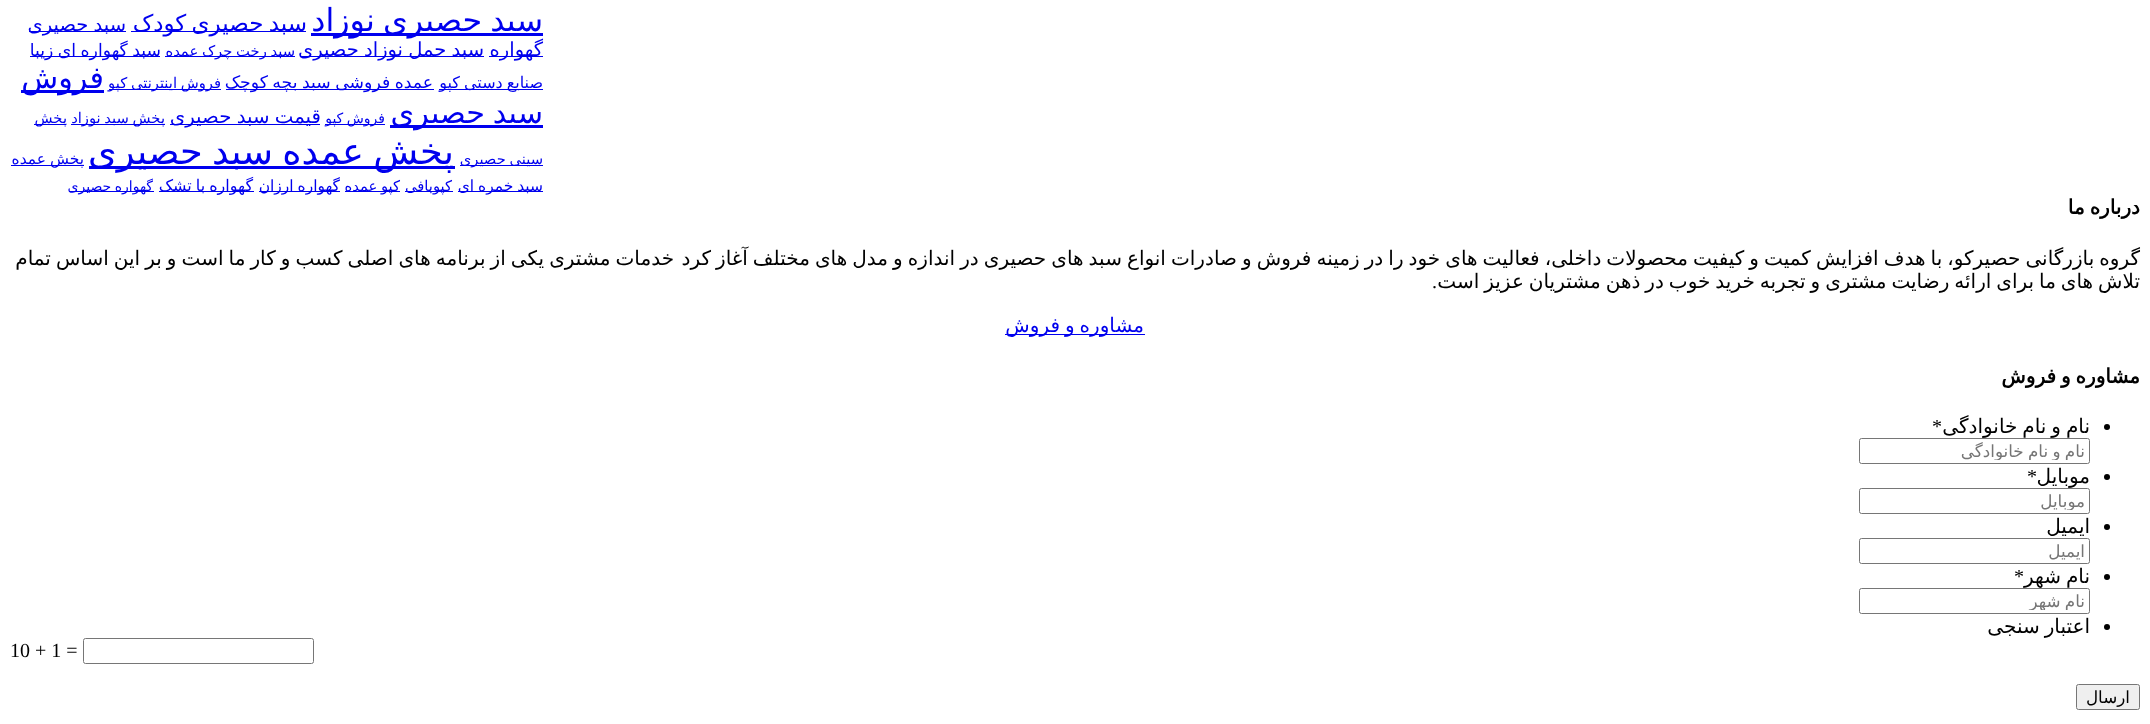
<!DOCTYPE html>
<meta charset="utf-8">
<style>body { margin: 0 } canvas { display: block }</style>
<canvas id="canvas" width="2150" height="724"></canvas>
<script type="module">
  const canvas = document.getElementById("canvas");
  const ctx = canvas.getContext("2d");
  ctx.miterLimit = 4;
  ctx.fontKerning = "normal";

  ctx.fillStyle = "#ffffff";
  ctx.fillRect(0, 0, 2150, 724);
  ctx.fillStyle = "#0000ee";
  ctx.fillRect(311, 33, 232, 3);
  ctx.wordSpacing = "-2px";
  ctx.direction = "rtl";
  ctx.font = "31.75px DejaVu Sans";
  ctx.fillText("سبد حصیری نوزاد", 543, 31);
  ctx.fillRect(131, 31, 175, 1);
  ctx.font = "23px DejaVu Sans";
  ctx.fillText("سبد حصیری کودک", 307, 31);
  ctx.fillRect(29, 31, 97, 1);
  ctx.wordSpacing = "-1px";
  ctx.font = "19.5px DejaVu Sans";
  ctx.fillText("سبد حصیری", 126, 31);
  ctx.fillRect(489, 56, 54, 1);
  ctx.wordSpacing = "0px";
  ctx.fillText("گهواره", 543, 56);
  ctx.fillRect(300, 56, 184, 1);
  ctx.wordSpacing = "-1px";
  ctx.fillText("سبد حمل نوزاد حصیری", 484, 56);
  ctx.fillRect(165, 56, 130, 1);
  ctx.font = "14.75px DejaVu Sans";
  ctx.fillText("سبد رخت چرک عمده", 295, 56);
  ctx.fillRect(30, 56, 130, 1);
  ctx.font = "17.25px DejaVu Sans";
  ctx.fillText("سبد گهواره ای زیبا", 161, 56);
  ctx.fillRect(439, 89, 104, 1);
  ctx.font = "16px DejaVu Sans";
  ctx.fillText("صنایع دستی کپو", 543, 88);
  ctx.fillRect(226, 89, 208, 1);
  ctx.font = "17.25px DejaVu Sans";
  ctx.fillText("عمده فروشی سبد بچه کوچک", 433, 88);
  ctx.fillRect(109, 89, 112, 1);
  ctx.font = "14.75px DejaVu Sans";
  ctx.fillText("فروش اینترنتی کپو", 221, 88);
  ctx.fillRect(21, 90, 83, 3);
  ctx.wordSpacing = "0px";
  ctx.font = "30.25px DejaVu Sans";
  ctx.fillText("فروش", 104, 88);
  ctx.fillRect(390, 125, 153, 3);
  ctx.wordSpacing = "-2px";
  ctx.fillText("سبد حصیری", 543, 123);
  ctx.fillRect(325, 124, 60, 1);
  ctx.wordSpacing = "-1px";
  ctx.font = "14px DejaVu Sans";
  ctx.fillText("فروش کپو", 385, 123);
  ctx.fillRect(170, 124, 150, 1);
  ctx.font = "19.75px DejaVu Sans";
  ctx.fillText("قیمت سبد حصیری", 321, 123);
  ctx.fillRect(71, 124, 94, 1);
  ctx.font = "14.75px DejaVu Sans";
  ctx.fillText("پخش سبد نوزاد", 165, 123);
  ctx.fillRect(34, 124, 32, 1);
  ctx.wordSpacing = "0px";
  ctx.fillText("پخش", 67, 123);
  ctx.fillRect(460, 165, 83, 1);
  ctx.wordSpacing = "-1px";
  ctx.fillText("سینی حصیری", 543, 164);
  ctx.fillRect(89, 166, 366, 3);
  ctx.wordSpacing = "-2.5px";
  ctx.font = "36.75px DejaVu Sans";
  ctx.fillText("پخش عمده سبد حصیری", 454, 164);
  ctx.fillRect(11, 165, 73, 1);
  ctx.wordSpacing = "-1px";
  ctx.font = "15.5px DejaVu Sans";
  ctx.fillText("پخش عمده", 84, 164);
  ctx.fillRect(458, 191, 85, 1);
  ctx.fillText("سبد خمره ای", 543, 191);
  ctx.fillRect(405, 191, 48, 1);
  ctx.wordSpacing = "0px";
  ctx.font = "14.75px DejaVu Sans";
  ctx.fillText("کپوبافی", 452, 191);
  ctx.fillRect(345, 191, 55, 1);
  ctx.wordSpacing = "-1px";
  ctx.fillText("کپو عمده", 400, 191);
  ctx.fillRect(259, 191, 81, 1);
  ctx.font = "15.5px DejaVu Sans";
  ctx.fillText("گهواره ارزان", 340, 191);
  ctx.fillRect(159, 191, 95, 1);
  ctx.font = "16px DejaVu Sans";
  ctx.fillText("گهواره با تشک", 253, 191);
  ctx.fillRect(69, 191, 85, 1);
  ctx.font = "14px DejaVu Sans";
  ctx.fillText("گهواره حصیری", 153, 191);
  ctx.wordSpacing = "-1.4px";
  ctx.font = "bold 20px DejaVu Sans";
  ctx.fillStyle = "#000000";
  ctx.fillText("درباره ما", 2140, 214);
  ctx.wordSpacing = "-1.3px";
  ctx.font = "20px DejaVu Sans";
  ctx.fillText("گروه بازرگانی حصیرکو، با هدف افزایش کمیت و کیفیت محصولات داخلی، فعالیت های خود را در زمینه فروش و صادرات انواع سبد های حصیری در اندازه و مدل های مختلف آغاز کرد", 2140, 265);
  ctx.fillText("خدمات مشتری یکی از برنامه های اصلی کسب و کار ما است و بر این اساس تمام", 674, 265);
  ctx.wordSpacing = "-1.4px";
  ctx.fillText("تلاش های ما برای ارائه رضایت مشتری و تجربه خرید خوب در ذهن مشتریان عزیز است", 2140, 288);
  ctx.wordSpacing = "0px";
  ctx.font = "20px Liberation Serif";
  ctx.fillText(".", 1437, 288);
  ctx.fillStyle = "#0000ee";
  ctx.fillRect(1005, 334, 140, 1);
  ctx.wordSpacing = "-1.4px";
  ctx.font = "20px DejaVu Sans";
  ctx.fillText("مشاوره و فروش", 1144, 332);
  ctx.font = "bold 20px DejaVu Sans";
  ctx.fillStyle = "#000000";
  ctx.fillText("مشاوره و فروش", 2140, 383);
  ctx.beginPath();
  ctx.arc(2107, 427, 3, 0, Math.PI * 2);
  ctx.fill();
  ctx.font = "20px DejaVu Sans";
  ctx.fillText("نام و نام خانوادگی", 2090, 433);
  ctx.wordSpacing = "0px";
  ctx.direction = "ltr";
  ctx.font = "20px Liberation Serif";
  ctx.fillText("*", 1932, 433);
  ctx.beginPath();
  ctx.roundRect(1859.5, 438.5, 230, 25, 2);
  ctx.strokeStyle = "#767676";
  ctx.stroke();
  ctx.save();
  ctx.beginPath();
  ctx.rect(1864, 441, 221, 19);
  ctx.clip();
  ctx.wordSpacing = "-1px";
  ctx.direction = "rtl";
  ctx.font = "16.75px DejaVu Sans";
  ctx.fillStyle = "#757575";
  ctx.fillText("نام و نام خانوادگی", 2085, 457);
  ctx.restore();
  ctx.beginPath();
  ctx.arc(2107, 477, 3, 0, Math.PI * 2);
  ctx.fill();
  ctx.direction = "rtl";
  ctx.font = "20px DejaVu Sans";
  ctx.fillText("موبایل", 2090, 483);
  ctx.direction = "ltr";
  ctx.font = "20px Liberation Serif";
  ctx.fillText("*", 2027, 483);
  ctx.beginPath();
  ctx.roundRect(1859.5, 488.5, 230, 25, 2);
  ctx.stroke();
  ctx.save();
  ctx.beginPath();
  ctx.rect(1864, 491, 221, 19);
  ctx.clip();
  ctx.direction = "rtl";
  ctx.font = "16.75px DejaVu Sans";
  ctx.fillStyle = "#757575";
  ctx.fillText("موبایل", 2085, 507);
  ctx.restore();
  ctx.beginPath();
  ctx.arc(2107, 527, 3, 0, Math.PI * 2);
  ctx.fill();
  ctx.direction = "rtl";
  ctx.font = "20px DejaVu Sans";
  ctx.fillText("ایمیل", 2090, 533);
  ctx.beginPath();
  ctx.roundRect(1859.5, 538.5, 230, 25, 2);
  ctx.stroke();
  ctx.font = "16.75px DejaVu Sans";
  ctx.fillStyle = "#757575";
  ctx.fillText("ایمیل", 2085, 557);
  ctx.fillStyle = "#000000";
  ctx.beginPath();
  ctx.arc(2107, 577, 3, 0, Math.PI * 2);
  ctx.fill();
  ctx.wordSpacing = "-1.4px";
  ctx.font = "20px DejaVu Sans";
  ctx.fillText("نام شهر", 2090, 583);
  ctx.wordSpacing = "0px";
  ctx.direction = "ltr";
  ctx.font = "20px Liberation Serif";
  ctx.fillText("*", 2014, 583);
  ctx.beginPath();
  ctx.roundRect(1859.5, 588.5, 230, 25, 2);
  ctx.stroke();
  ctx.save();
  ctx.beginPath();
  ctx.rect(1864, 591, 221, 19);
  ctx.clip();
  ctx.wordSpacing = "-1px";
  ctx.direction = "rtl";
  ctx.font = "16.75px DejaVu Sans";
  ctx.fillStyle = "#757575";
  ctx.fillText("نام شهر", 2085, 607);
  ctx.restore();
  ctx.beginPath();
  ctx.arc(2107, 627, 3, 0, Math.PI * 2);
  ctx.fill();
  ctx.wordSpacing = "-1.4px";
  ctx.direction = "rtl";
  ctx.font = "20px DejaVu Sans";
  ctx.fillText("اعتبار سنجی", 2090, 633);
  ctx.beginPath();
  ctx.roundRect(83.5, 638.5, 230, 25, 2);
  ctx.stroke();
  ctx.wordSpacing = "0px";
  ctx.direction = "ltr";
  ctx.font = "20px Liberation Serif";
  ctx.fillText("10 + 1 =", 10, 657);
  ctx.fillStyle = "#efefef";
  ctx.beginPath();
  ctx.roundRect(2076.5, 684.5, 63, 25, 2);
  ctx.fill();
  ctx.stroke();
  ctx.direction = "rtl";
  ctx.font = "16.75px DejaVu Sans";
  ctx.fillStyle = "#000000";
  ctx.fillText("ارسال", 2130, 703);
</script>
